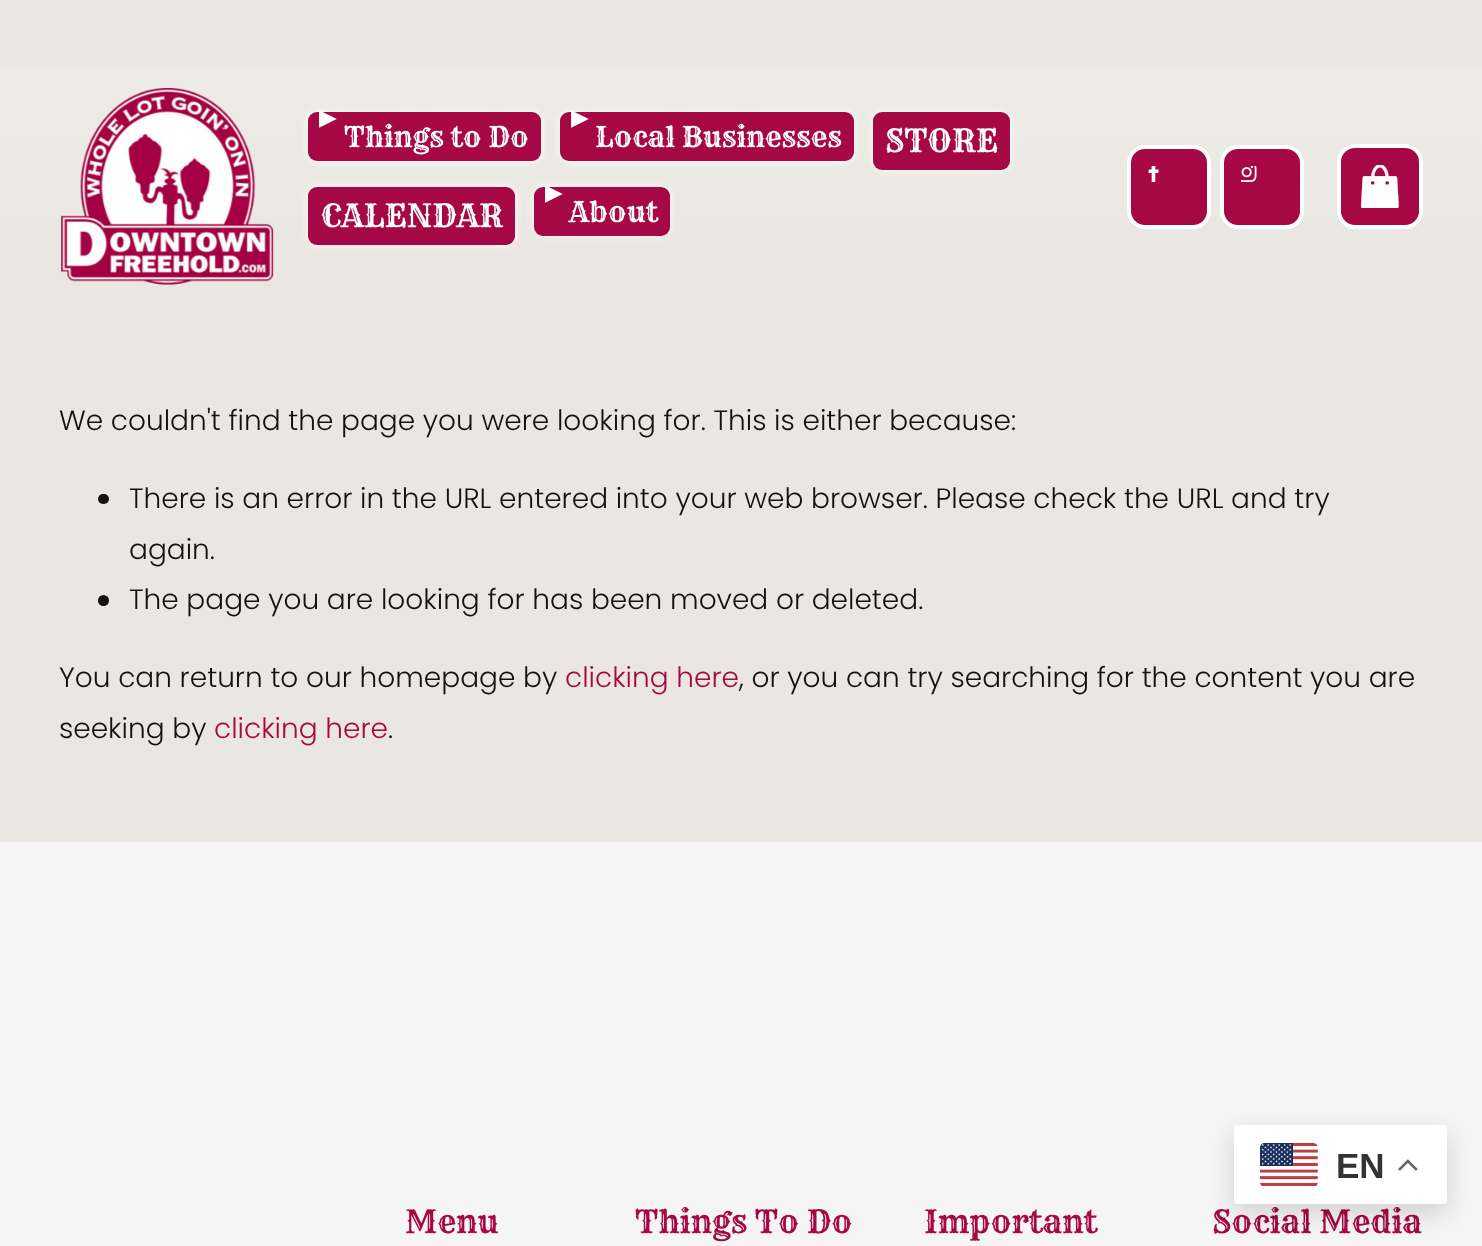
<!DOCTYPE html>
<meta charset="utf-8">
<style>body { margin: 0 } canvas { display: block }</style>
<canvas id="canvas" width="1482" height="1246"></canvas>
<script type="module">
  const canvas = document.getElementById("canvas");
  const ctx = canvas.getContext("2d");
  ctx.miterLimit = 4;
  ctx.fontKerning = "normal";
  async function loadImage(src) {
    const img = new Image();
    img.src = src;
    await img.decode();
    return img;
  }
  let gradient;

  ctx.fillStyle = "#eae6e1";
  ctx.fillRect(0, 0, 1482, 1246);
  gradient = ctx.createLinearGradient(741, 65, 741, 310);
  gradient.addColorStop(0, "#edebe7");
  gradient.addColorStop(1, "#e9e7e0");
  ctx.fillStyle = gradient;
  ctx.fillRect(0, 65, 1482, 153);
  ctx.drawImage(await loadImage("img1.png"), 61, 88, 213, 197);
  ctx.fillStyle = "#ffffff";
  ctx.filter = "blur(4.5px)";
  ctx.beginPath();
  ctx.roundRect(308, 112, 233, 49, 9);
  ctx.fill();
  ctx.filter = "none";
  ctx.fillStyle = "#a50845";
  ctx.beginPath();
  ctx.roundRect(308, 112, 233, 49, 9);
  ctx.fill();
  ctx.font = "23px DejaVu Sans";
  ctx.fillStyle = "#ffffff";
  ctx.fillText("▶", 319, 125);
  ctx.font = "28px Rye";
  ctx.fillText("Things to Do", 344, 147);
  ctx.filter = "blur(4.5px)";
  ctx.beginPath();
  ctx.roundRect(560, 112, 294, 49, 9);
  ctx.fill();
  ctx.filter = "none";
  ctx.fillStyle = "#a50845";
  ctx.beginPath();
  ctx.roundRect(560, 112, 294, 49, 9);
  ctx.fill();
  ctx.font = "23px DejaVu Sans";
  ctx.fillStyle = "#ffffff";
  ctx.fillText("▶", 571, 125);
  ctx.font = "28px Rye";
  ctx.fillText("Local Businesses", 595, 147);
  ctx.filter = "blur(4.5px)";
  ctx.beginPath();
  ctx.roundRect(873, 112, 137, 58, 9);
  ctx.fill();
  ctx.filter = "none";
  ctx.fillStyle = "#a50845";
  ctx.beginPath();
  ctx.roundRect(873, 112, 137, 58, 9);
  ctx.fill();
  ctx.font = "31.5px Rye";
  ctx.fillStyle = "#ffffff";
  ctx.fillText("STORE", 885, 152);
  ctx.filter = "blur(4.5px)";
  ctx.beginPath();
  ctx.roundRect(308, 187, 207, 58, 9);
  ctx.fill();
  ctx.filter = "none";
  ctx.fillStyle = "#a50845";
  ctx.beginPath();
  ctx.roundRect(308, 187, 207, 58, 9);
  ctx.fill();
  ctx.fillStyle = "#ffffff";
  ctx.fillText("CALENDAR", 321, 227);
  ctx.filter = "blur(4.5px)";
  ctx.beginPath();
  ctx.roundRect(534, 187, 136, 49, 9);
  ctx.fill();
  ctx.filter = "none";
  ctx.fillStyle = "#a50845";
  ctx.beginPath();
  ctx.roundRect(534, 187, 136, 49, 9);
  ctx.fill();
  ctx.font = "23px DejaVu Sans";
  ctx.fillStyle = "#ffffff";
  ctx.fillText("▶", 545, 200);
  ctx.font = "28px Rye";
  ctx.fillText("About", 569, 222);
  ctx.fillStyle = "#a50845";
  ctx.beginPath();
  ctx.roundRect(1129, 147, 80, 80, 16);
  ctx.fill();
  ctx.strokeStyle = "#ffffff";
  ctx.lineWidth = 4;
  ctx.stroke();
  ctx.drawImage(await loadImage("img2.png"), 1148, 166, 11, 16);
  ctx.beginPath();
  ctx.roundRect(1222, 147, 80, 80, 16);
  ctx.fill();
  ctx.stroke();
  ctx.drawImage(await loadImage("img3.png"), 1241, 166, 16, 16);
  ctx.beginPath();
  ctx.roundRect(1339, 146, 82, 81, 16);
  ctx.fill();
  ctx.stroke();
  ctx.drawImage(await loadImage("img4.png"), 1360, 165, 39, 43);
  ctx.font = "300 28px Poppins";
  ctx.fillStyle = "#121212";
  ctx.fillText("We couldn't find the page you were looking for. This is either because:", 59, 430);
  ctx.beginPath();
  ctx.roundRect(98, 494, 11, 10, 5);
  ctx.fill();
  ctx.fillText("There is an error in the URL entered into your web browser. Please check the URL and try", 129, 508);
  ctx.fillText("again.", 129, 559);
  ctx.beginPath();
  ctx.arc(103.5, 600.5, 5.5, 0, Math.PI * 2);
  ctx.fill();
  ctx.fillText("The page you are looking for has been moved or deleted.", 129, 609);
  ctx.fillText("You can return to our homepage by", 59, 687);
  ctx.fillStyle = "#a50845";
  ctx.fillText("clicking here", 565, 687);
  ctx.fillStyle = "#121212";
  ctx.fillText(", or you can try searching for the content you are", 739, 687);
  ctx.fillText("seeking by", 59, 738);
  ctx.fillStyle = "#a50845";
  ctx.fillText("clicking here", 214, 738);
  ctx.fillStyle = "#121212";
  ctx.fillText(".", 388, 738);
  ctx.fillStyle = "#f5f5f5";
  ctx.fillRect(0, 842, 1482, 404);
  ctx.font = "31.5px Rye";
  ctx.fillStyle = "#a50845";
  ctx.fillText("Menu", 405, 1233);
  ctx.fillText("Things To Do", 635, 1233);
  ctx.fillText("Important", 924, 1233);
  ctx.fillText("Social Media", 1212, 1233);
  ctx.fillStyle = "rgba(0, 0, 0, 0.15)";
  ctx.filter = "blur(13px)";
  ctx.beginPath();
  ctx.roundRect(1234, 1134, 213, 79, 4);
  ctx.fill();
  ctx.filter = "none";
  ctx.fillStyle = "#ffffff";
  ctx.beginPath();
  ctx.roundRect(1234, 1125, 213, 79, 4);
  ctx.fill();
  ctx.drawImage(await loadImage("img5.png"), 1260, 1143, 58, 43);
  ctx.font = "bold 35px Liberation Sans";
  ctx.fillStyle = "#333333";
  ctx.fillText("EN", 1336, 1178);
  ctx.drawImage(await loadImage("img6.png"), 1398, 1159, 20, 12);
</script>
